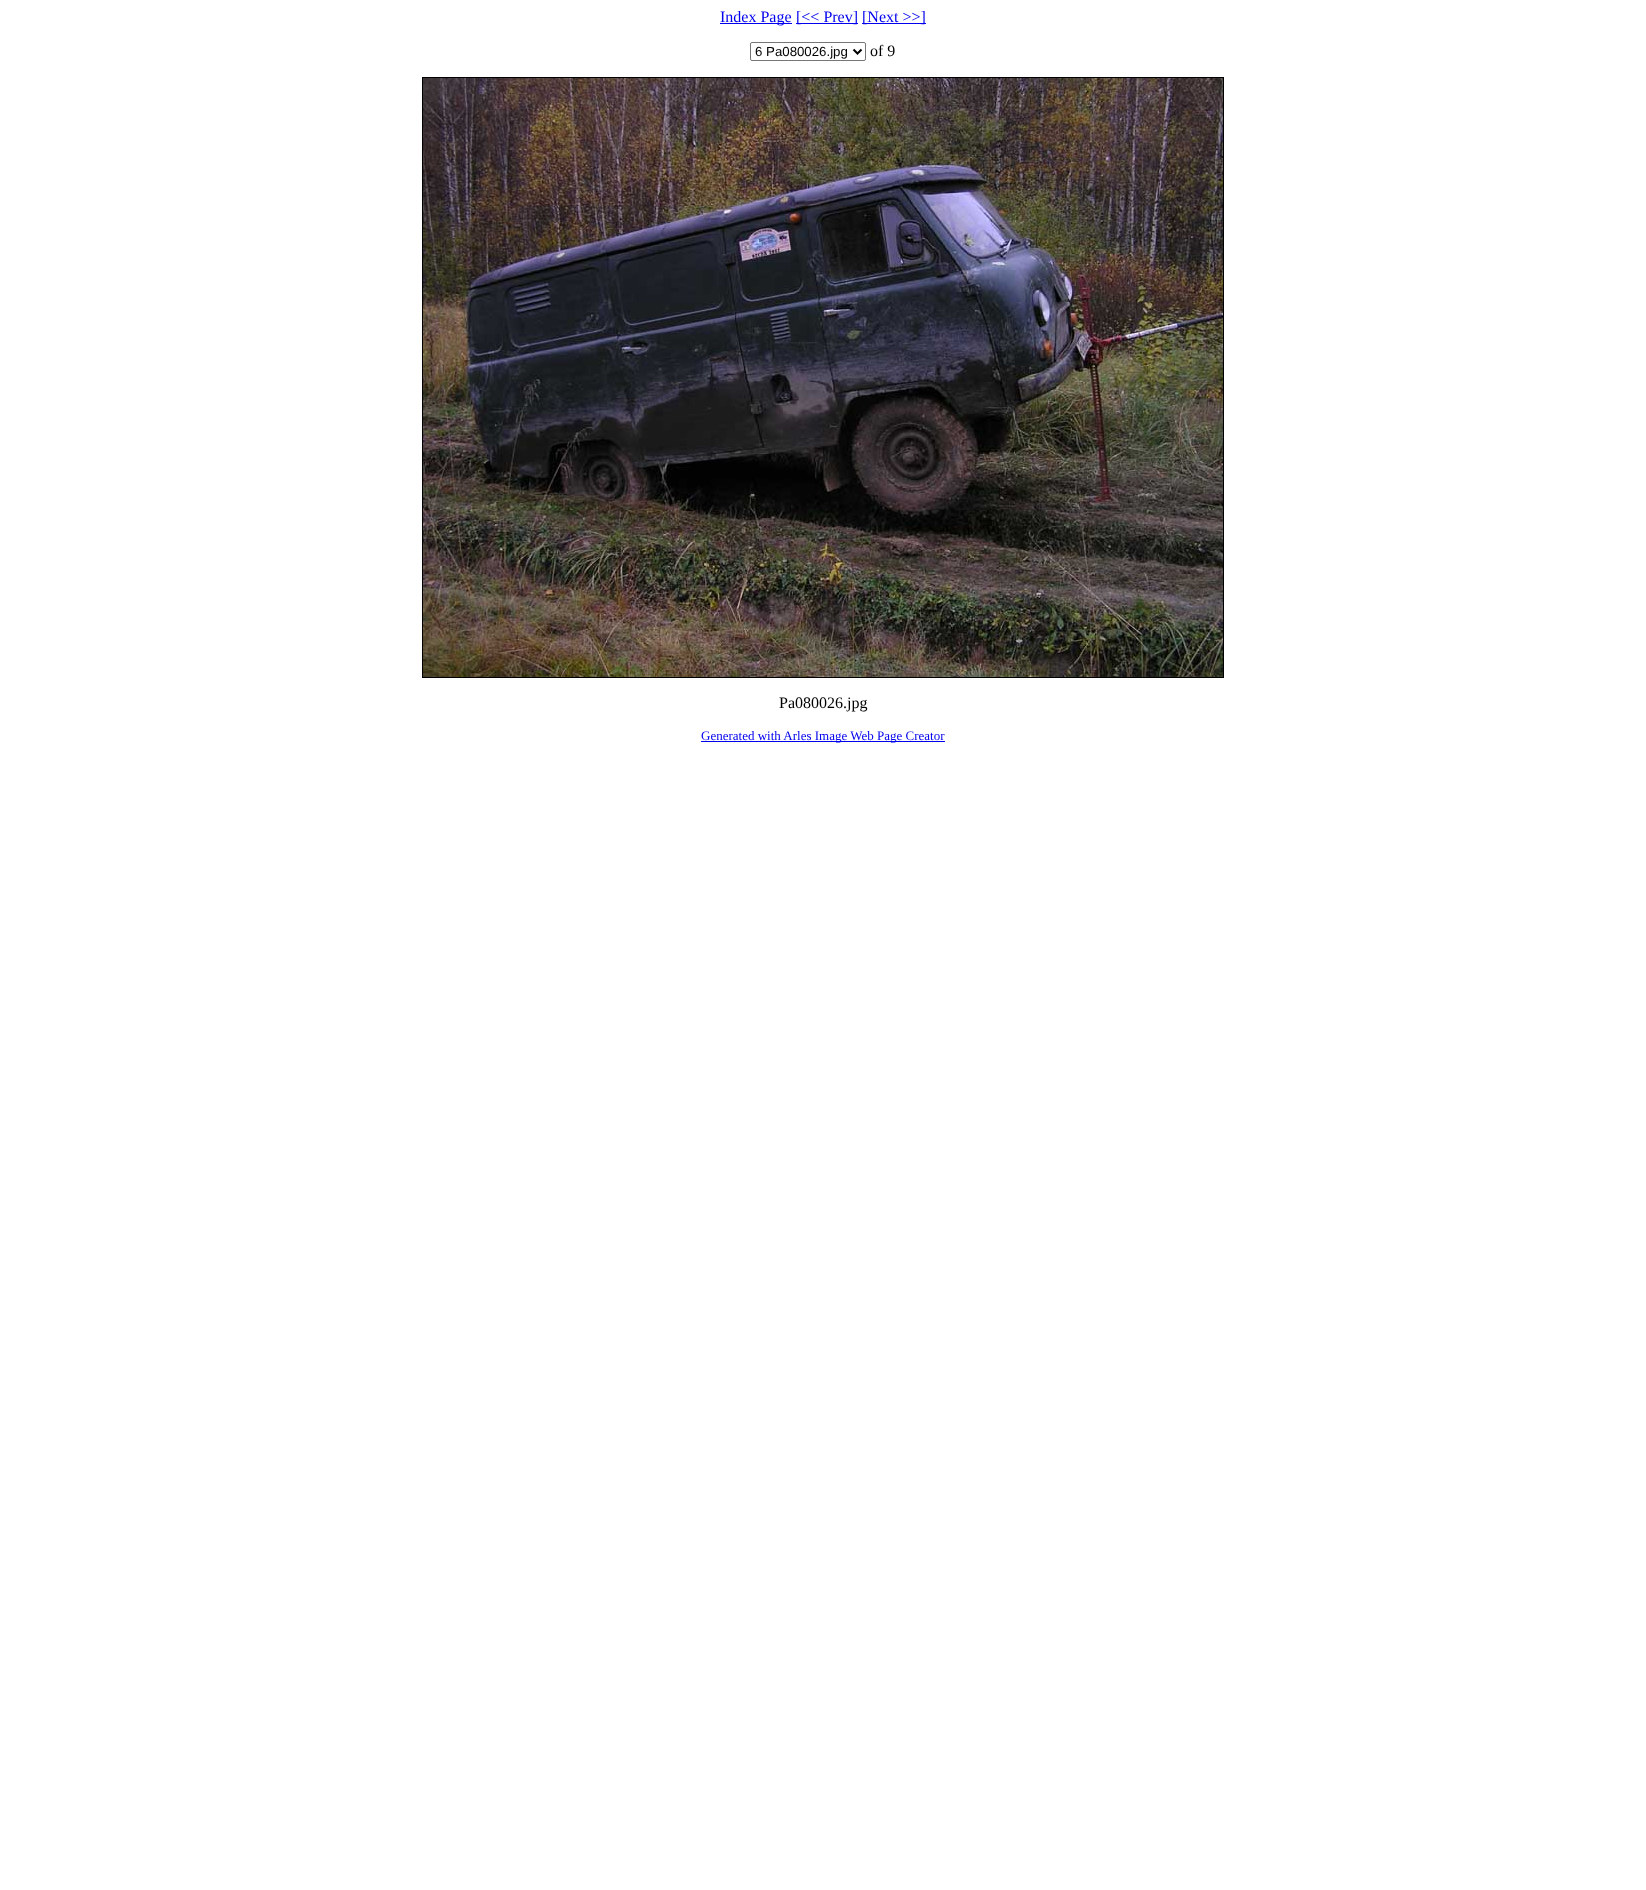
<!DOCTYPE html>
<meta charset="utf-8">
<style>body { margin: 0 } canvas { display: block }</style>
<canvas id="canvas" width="1646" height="1890"></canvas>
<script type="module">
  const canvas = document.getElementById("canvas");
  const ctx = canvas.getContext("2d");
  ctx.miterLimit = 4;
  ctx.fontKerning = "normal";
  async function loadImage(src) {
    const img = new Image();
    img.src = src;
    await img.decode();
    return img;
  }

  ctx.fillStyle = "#ffffff";
  ctx.fillRect(0, 0, 1646, 1890);
  ctx.fillStyle = "#0000ee";
  ctx.fillRect(720, 23, 72, 1);
  ctx.font = "16px Liberation Serif";
  ctx.fillText("Index Page", 720, 22);
  ctx.fillRect(796, 23, 62, 1);
  ctx.fillText("[<< Prev]", 796, 22);
  ctx.fillRect(862, 23, 64, 1);
  ctx.fillText("[Next >>]", 862, 22);
  ctx.beginPath();
  ctx.roundRect(750.5, 42.5, 115, 18, 1.5);
  ctx.strokeStyle = "#767676";
  ctx.stroke();
  ctx.beginPath();
  ctx.moveTo(853.5, 49.5);
  ctx.lineTo(857.5, 53.5);
  ctx.lineTo(861.5, 49.5);
  ctx.strokeStyle = "#000000";
  ctx.lineWidth = 2;
  ctx.stroke();
  ctx.font = "13.25px Liberation Sans";
  ctx.fillStyle = "#000000";
  ctx.fillText("6 Pa080026.jpg", 755, 56);
  ctx.font = "16px Liberation Serif";
  ctx.fillText("of 9", 870, 56);
  ctx.lineWidth = 1;
  ctx.strokeRect(422.5, 77.5, 801, 600);
  ctx.drawImage(await loadImage("img1.png"), 423, 78, 800, 599);
  ctx.fillText("Pa080026.jpg", 779, 708);
  ctx.fillStyle = "#0000ee";
  ctx.fillRect(701, 741, 244, 1);
  ctx.font = "13px Liberation Serif";
  ctx.fillText("Generated with Arles Image Web Page Creator", 701, 740);
</script>
